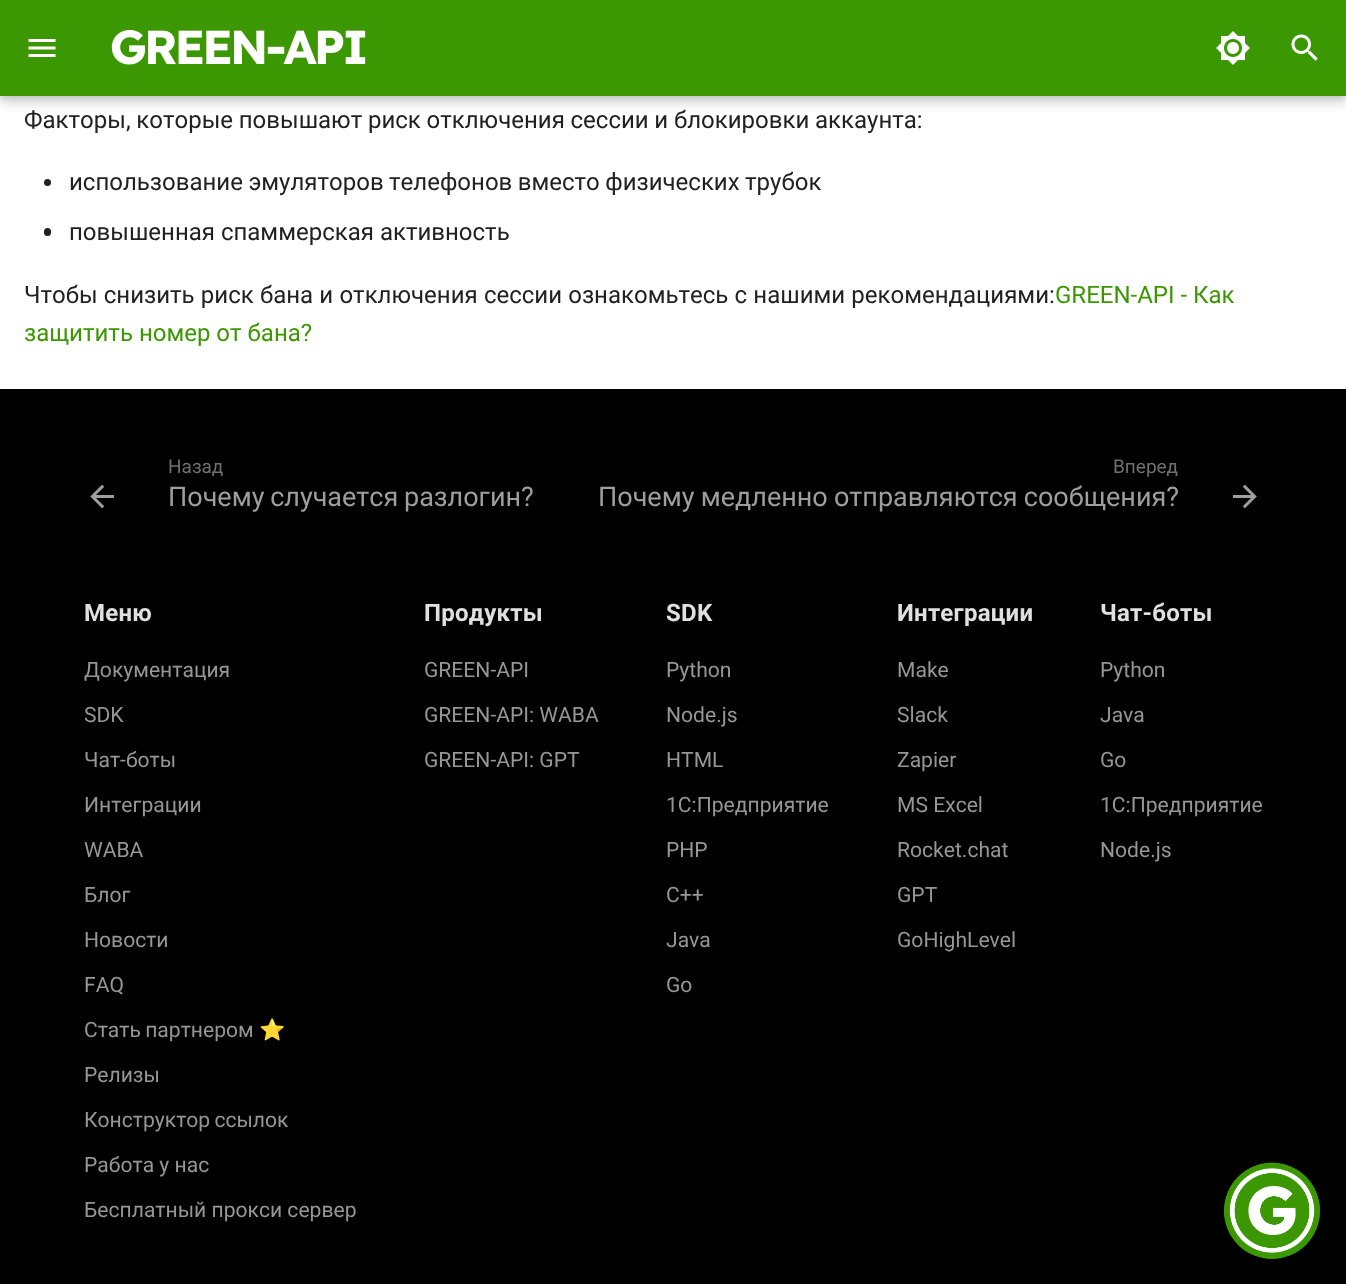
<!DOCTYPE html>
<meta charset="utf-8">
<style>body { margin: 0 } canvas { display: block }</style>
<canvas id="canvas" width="1346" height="1284"></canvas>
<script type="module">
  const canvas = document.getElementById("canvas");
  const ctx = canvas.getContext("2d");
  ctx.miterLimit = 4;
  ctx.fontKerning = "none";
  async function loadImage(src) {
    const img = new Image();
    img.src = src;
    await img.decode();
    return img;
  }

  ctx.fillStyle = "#ffffff";
  ctx.fillRect(0, 0, 1346, 1284);
  ctx.fillStyle = "rgba(0, 0, 0, 0.2)";
  ctx.filter = "blur(6px)";
  ctx.beginPath();
  ctx.rect(0, 6, 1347, 96);
  ctx.fill();
  ctx.filter = "none";
  ctx.fillStyle = "rgba(0, 0, 0, 0.1)";
  ctx.filter = "blur(3px)";
  ctx.beginPath();
  ctx.rect(0, 0, 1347, 96);
  ctx.fill();
  ctx.filter = "none";
  ctx.fillStyle = "#3b9702";
  ctx.fillRect(0, 0, 1346, 96);
  ctx.drawImage(await loadImage("img1.png"), 28, 39, 28, 18);
  ctx.drawImage(await loadImage("img2.png"), 111, 30, 255, 35);
  ctx.drawImage(await loadImage("img3.png"), 1216, 31, 34, 34);
  ctx.drawImage(await loadImage("img4.png"), 1291, 34, 27, 27);
  ctx.wordSpacing = "-0.25px";
  ctx.font = "24px Roboto";
  ctx.fillStyle = "#212121";
  ctx.fillText("Факторы, которые повышают риск отключения сессии и блокировки аккаунта:", 24, 128);
  ctx.beginPath();
  ctx.arc(47.5, 182.5, 3.5, 0, Math.PI * 2);
  ctx.fill();
  ctx.wordSpacing = "-0.5px";
  ctx.fillText("использование эмуляторов телефонов вместо физических трубок", 69, 190);
  ctx.beginPath();
  ctx.roundRect(44, 228, 7, 8, 3.5);
  ctx.fill();
  ctx.wordSpacing = "0px";
  ctx.fillText("повышенная спаммерская активность", 69, 240);
  ctx.wordSpacing = "0.25px";
  ctx.fillText("Чтобы снизить риск бана и отключения сессии ознакомьтесь с нашими рекомендациями:", 24, 303);
  ctx.wordSpacing = "0px";
  ctx.fillStyle = "#3b9702";
  ctx.fillText("GREEN-API - Как", 1055, 303);
  ctx.fillText("защитить номер от бана?", 24, 341);
  ctx.fillStyle = "#000000";
  ctx.fillRect(0, 389, 1346, 895);
  ctx.drawImage(await loadImage("img5.png"), 90, 484, 24, 25);
  ctx.font = "19px Roboto";
  ctx.fillStyle = "#6f6f6f";
  ctx.fillText("Назад", 168, 473);
  ctx.wordSpacing = "-1px";
  ctx.font = "27px Roboto";
  ctx.fillStyle = "#9e9e9e";
  ctx.fillText("Почему случается разлогин?", 168, 506);
  ctx.wordSpacing = "0px";
  ctx.font = "19px Roboto";
  ctx.fillStyle = "#6f6f6f";
  ctx.fillText("Вперед", 1113, 473);
  ctx.wordSpacing = "-0.5px";
  ctx.font = "27px Roboto";
  ctx.fillStyle = "#9e9e9e";
  ctx.fillText("Почему медленно отправляются сообщения?", 598, 506);
  ctx.drawImage(await loadImage("img6.png"), 1233, 484, 24, 25);
  ctx.letterSpacing = "0.25px";
  ctx.wordSpacing = "0px";
  ctx.font = "bold 24px Roboto";
  ctx.fillStyle = "#e0e0e0";
  ctx.fillText("Меню", 84, 621);
  ctx.letterSpacing = "0px";
  ctx.font = "21.1px Roboto";
  ctx.fillStyle = "#969696";
  ctx.fillText("Документация", 84, 677);
  ctx.fillText("SDK", 84, 722);
  ctx.fillText("Чат-боты", 84, 767);
  ctx.fillText("Интеграции", 84, 812);
  ctx.fillText("WABA", 84, 857);
  ctx.fillText("Блог", 84, 902);
  ctx.fillText("Новости", 84, 947);
  ctx.fillText("FAQ", 84, 992);
  ctx.wordSpacing = "-1px";
  ctx.fillText("Стать партнером", 84, 1037);
  ctx.wordSpacing = "0px";
  ctx.font = "21.1px Noto Color Emoji";
  ctx.fillText("⭐", 259, 1037);
  ctx.font = "21.1px Roboto";
  ctx.fillText("Релизы", 84, 1082);
  ctx.wordSpacing = "-1px";
  ctx.fillText("Конструктор ссылок", 84, 1127);
  ctx.wordSpacing = "0px";
  ctx.fillText("Работа у нас", 84, 1172);
  ctx.fillText("Бесплатный прокси сервер", 84, 1217);
  ctx.letterSpacing = "0.25px";
  ctx.font = "bold 24px Roboto";
  ctx.fillStyle = "#e0e0e0";
  ctx.fillText("Продукты", 424, 621);
  ctx.letterSpacing = "0px";
  ctx.font = "21.1px Roboto";
  ctx.fillStyle = "#969696";
  ctx.fillText("GREEN-API", 424, 677);
  ctx.fillText("GREEN-API: WABA", 424, 722);
  ctx.fillText("GREEN-API: GPT", 424, 767);
  ctx.letterSpacing = "0.25px";
  ctx.font = "bold 24px Roboto";
  ctx.fillStyle = "#e0e0e0";
  ctx.fillText("SDK", 666, 621);
  ctx.letterSpacing = "0px";
  ctx.font = "21.1px Roboto";
  ctx.fillStyle = "#969696";
  ctx.fillText("Python", 666, 677);
  ctx.fillText("Node.js", 666, 722);
  ctx.fillText("HTML", 666, 767);
  ctx.fillText("1С:Предприятие", 666, 812);
  ctx.fillText("PHP", 666, 857);
  ctx.fillText("C++", 666, 902);
  ctx.fillText("Java", 666, 947);
  ctx.fillText("Go", 666, 992);
  ctx.letterSpacing = "0.25px";
  ctx.font = "bold 24px Roboto";
  ctx.fillStyle = "#e0e0e0";
  ctx.fillText("Интеграции", 897, 621);
  ctx.letterSpacing = "0px";
  ctx.font = "21.1px Roboto";
  ctx.fillStyle = "#969696";
  ctx.fillText("Make", 897, 677);
  ctx.fillText("Slack", 897, 722);
  ctx.fillText("Zapier", 897, 767);
  ctx.fillText("MS Excel", 897, 812);
  ctx.fillText("Rocket.chat", 897, 857);
  ctx.fillText("GPT", 897, 902);
  ctx.fillText("GoHighLevel", 897, 947);
  ctx.letterSpacing = "0.25px";
  ctx.font = "bold 24px Roboto";
  ctx.fillStyle = "#e0e0e0";
  ctx.fillText("Чат-боты", 1100, 621);
  ctx.letterSpacing = "0px";
  ctx.font = "21.1px Roboto";
  ctx.fillStyle = "#969696";
  ctx.fillText("Python", 1100, 677);
  ctx.fillText("Java", 1100, 722);
  ctx.fillText("Go", 1100, 767);
  ctx.fillText("1С:Предприятие", 1100, 812);
  ctx.fillText("Node.js", 1100, 857);
  ctx.fillStyle = "#3b9702";
  ctx.beginPath();
  ctx.arc(1272, 1211, 48, 0, Math.PI * 2);
  ctx.fill();
  ctx.drawImage(await loadImage("img7.png"), 1224, 1162, 96, 97);
</script>
